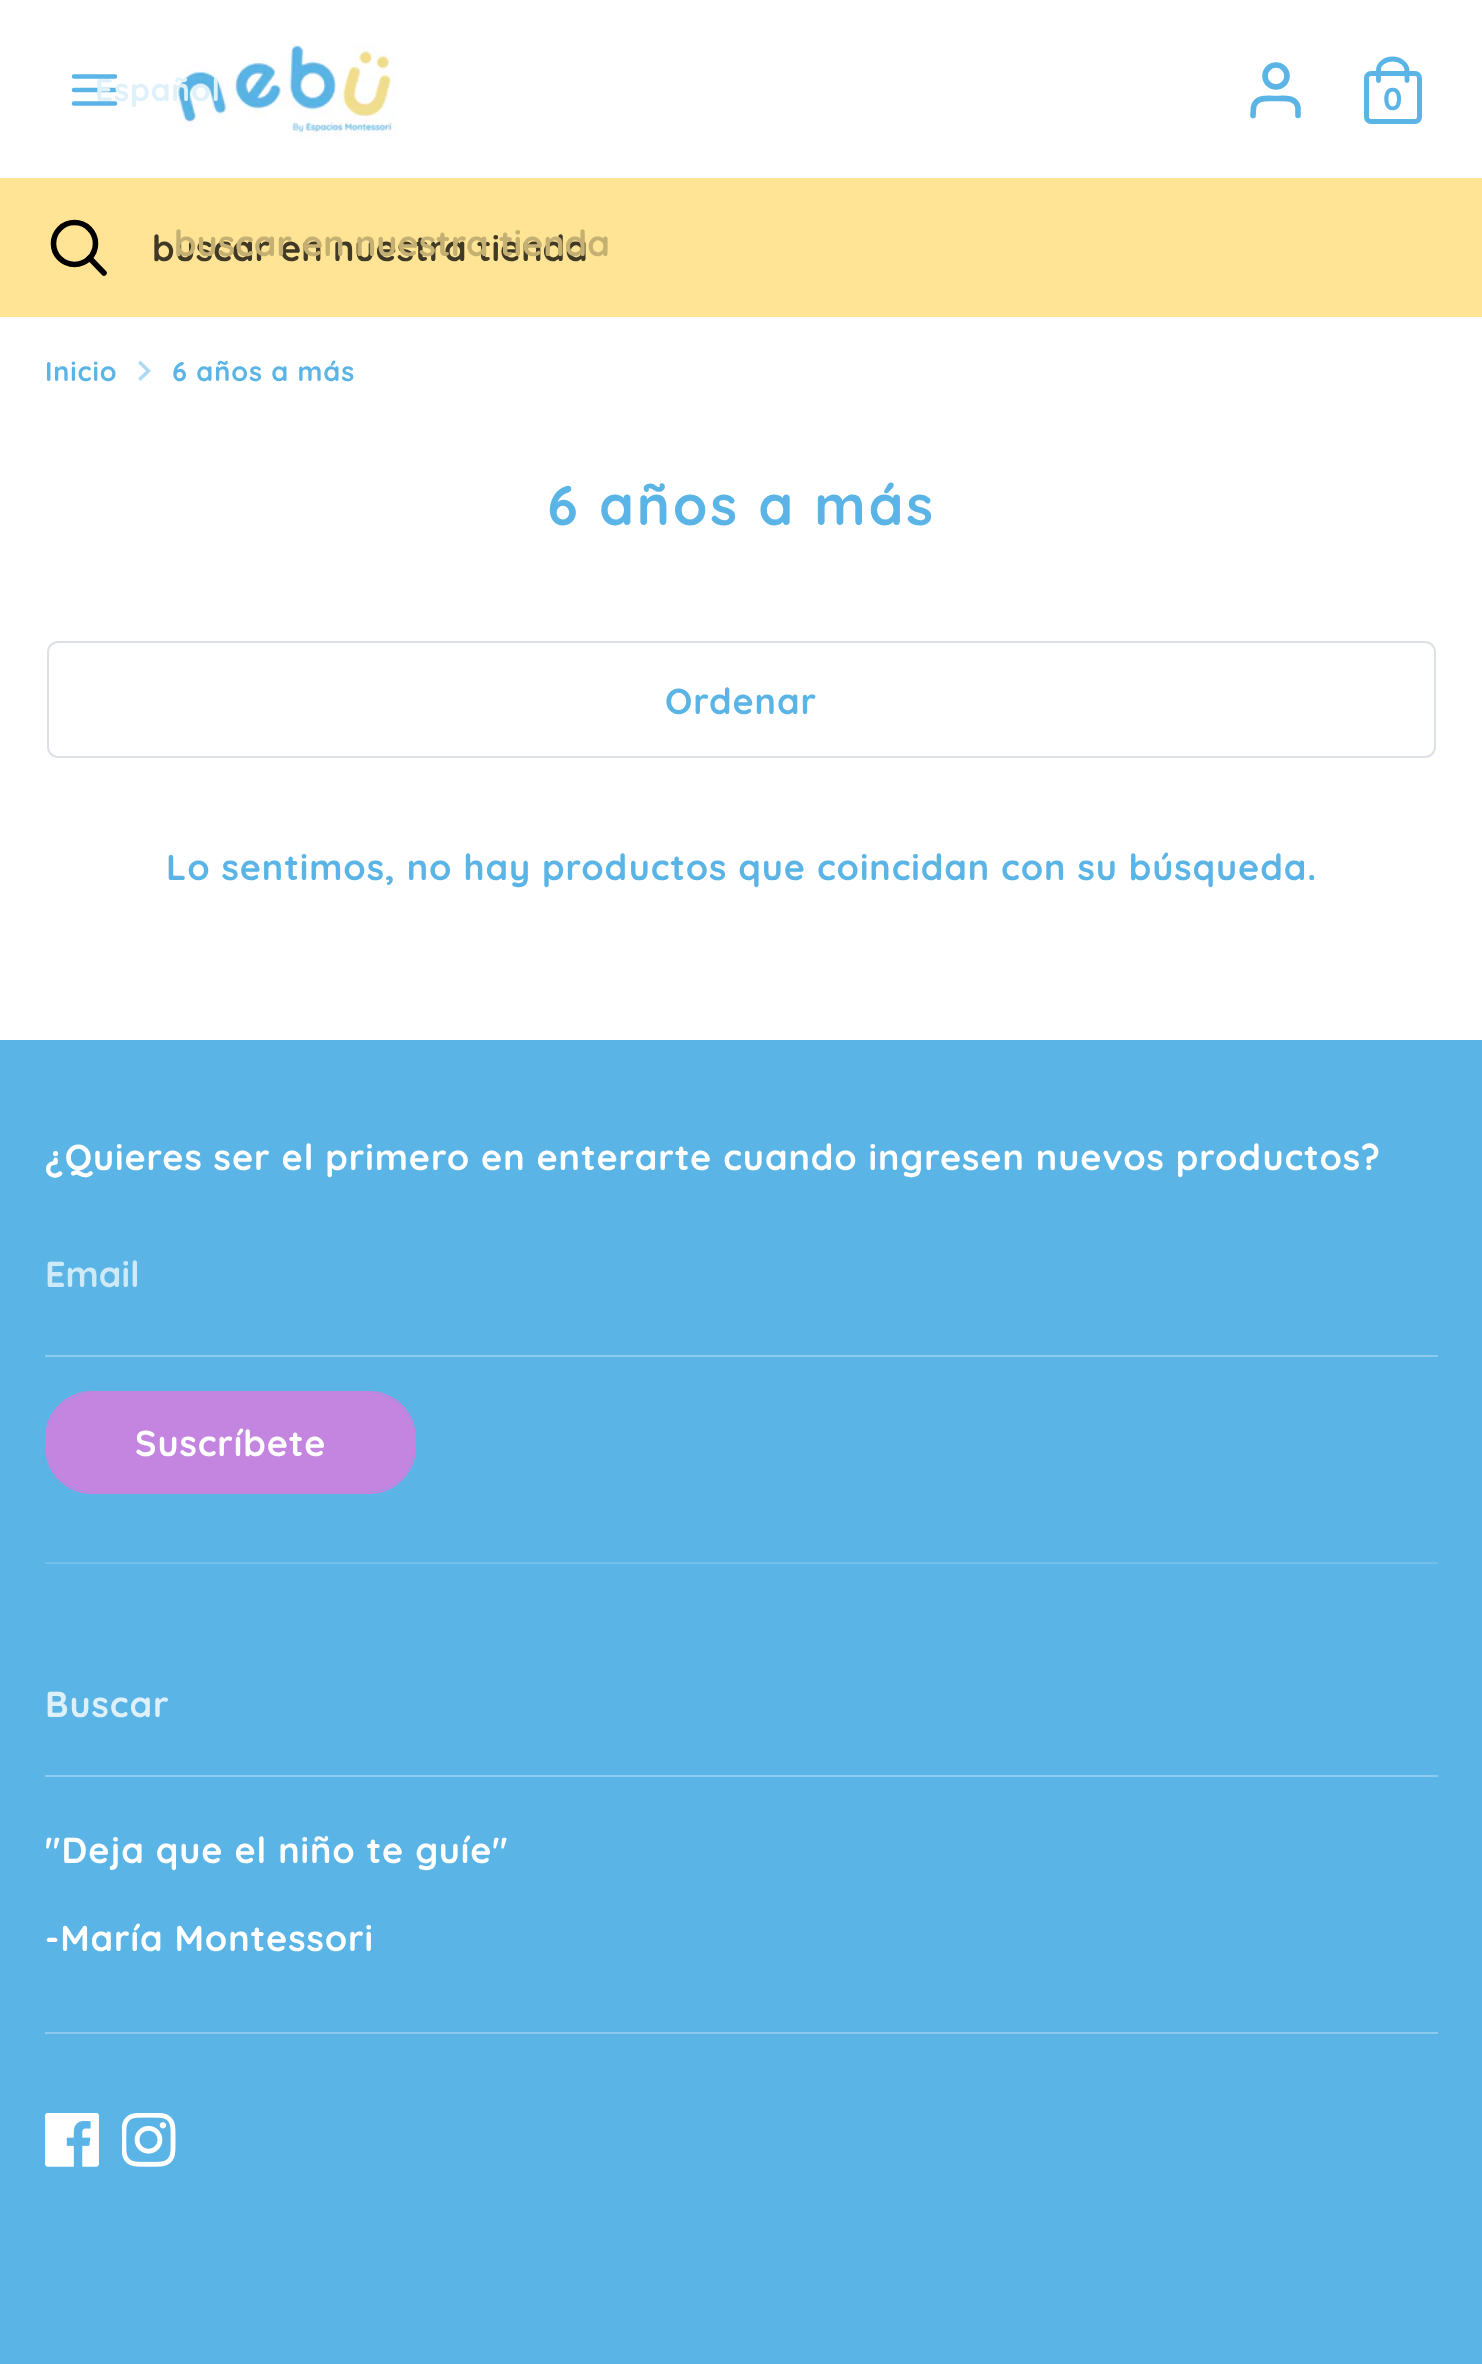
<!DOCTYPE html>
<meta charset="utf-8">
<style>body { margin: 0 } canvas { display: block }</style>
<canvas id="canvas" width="1482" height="2364"></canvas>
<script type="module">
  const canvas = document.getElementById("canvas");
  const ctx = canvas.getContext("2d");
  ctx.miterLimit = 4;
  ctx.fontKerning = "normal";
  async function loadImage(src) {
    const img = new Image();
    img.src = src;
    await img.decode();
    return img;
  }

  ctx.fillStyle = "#ffffff";
  ctx.fillRect(0, 0, 1482, 2364);
  ctx.beginPath();
  ctx.moveTo(74, 90);
  ctx.lineTo(115, 90);
  ctx.moveTo(74, 76.5);
  ctx.lineTo(115, 76.5);
  ctx.moveTo(74, 103.5);
  ctx.lineTo(115, 103.5);
  ctx.strokeStyle = "#5ab4e5";
  ctx.lineWidth = 4.5;
  ctx.lineCap = "round";
  ctx.stroke();
  ctx.drawImage(await loadImage("img1.png"), 176, 44, 221, 94);
  ctx.letterSpacing = "0.9px";
  ctx.font = "bold 31.5px Quicksand";
  ctx.fillStyle = "#def0fa";
  ctx.fillText("Español", 95, 101);
  ctx.fillStyle = "#ffe495";
  ctx.fillRect(0, 178, 1482, 139);
  ctx.letterSpacing = "0px";
  ctx.font = "bold 36px Quicksand";
  ctx.fillStyle = "#403925";
  ctx.fillText("buscar en nuestra tienda", 152, 261);
  ctx.fillStyle = "#c5b073";
  ctx.fillText("buscar en nuestra tienda", 174, 256);
  ctx.beginPath();
  ctx.arc(74.5, 243.5, 21, 0, Math.PI * 2);
  ctx.strokeStyle = "#000000";
  ctx.lineWidth = 5.6;
  ctx.stroke();
  ctx.beginPath();
  ctx.moveTo(104, 273);
  ctx.lineTo(89.5, 258);
  ctx.stroke();
  ctx.beginPath();
  ctx.moveTo(1298, 115.5);
  ctx.lineTo(1298, 107.5);
  ctx.bezierCurveTo(1296, 96.5, 1284, 98.5, 1276, 98.5);
  ctx.bezierCurveTo(1267.5, 98.5, 1255.5, 96.5, 1253.5, 107.5);
  ctx.lineTo(1253, 115.5);
  ctx.strokeStyle = "#5ab4e5";
  ctx.stroke();
  ctx.beginPath();
  ctx.arc(1276, 76, 11, 0, Math.PI * 2);
  ctx.stroke();
  ctx.beginPath();
  ctx.roundRect(1366.5, 73.5, 53, 48, 4.5);
  ctx.lineWidth = 5;
  ctx.stroke();
  ctx.beginPath();
  ctx.moveTo(1378.5, 80.5);
  ctx.lineTo(1378.5, 70.5);
  ctx.bezierCurveTo(1378, 64.5, 1384.5, 59, 1392.5, 59);
  ctx.bezierCurveTo(1400.5, 59, 1407, 64.5, 1407, 70.5);
  ctx.lineTo(1407, 80.5);
  ctx.lineWidth = 4.8;
  ctx.stroke();
  ctx.font = "bold 31.5px Quicksand";
  ctx.fillStyle = "#5ab4e5";
  ctx.fillText("0", 1383, 110);
  ctx.letterSpacing = "0.9px";
  ctx.font = "bold 27px Quicksand";
  ctx.fillText("Inicio", 45, 381);
  ctx.fillStyle = "#addaf2";
  ctx.beginPath();
  ctx.moveTo(138, 378.5);
  ctx.lineTo(146, 371);
  ctx.lineTo(138, 363);
  ctx.lineTo(140.5, 360.5);
  ctx.lineTo(151, 371);
  ctx.lineTo(140.5, 381);
  ctx.closePath();
  ctx.fill();
  ctx.fillStyle = "#5ab4e5";
  ctx.fillText("6 años a más", 172, 381);
  ctx.letterSpacing = "2.75px";
  ctx.font = "bold 55.75px Quicksand";
  ctx.fillText("6 años a más", 547, 525);
  ctx.beginPath();
  ctx.roundRect(48, 642, 1387, 115, 10);
  ctx.strokeStyle = "#dde0e4";
  ctx.lineWidth = 2;
  ctx.stroke();
  ctx.letterSpacing = "0.9px";
  ctx.font = "bold 36px Quicksand";
  ctx.fillText("Ordenar", 665, 714);
  ctx.fillText("Lo sentimos, no hay productos que coincidan con su búsqueda.", 166, 880);
  ctx.fillRect(0, 1040, 1482, 1324);
  ctx.fillStyle = "#ffffff";
  ctx.fillText("¿Quieres ser el primero en enterarte cuando ingresen nuevos productos?", 45, 1170);
  ctx.fillStyle = "#8ccbed";
  ctx.fillRect(45, 1355, 1393, 2);
  ctx.letterSpacing = "0px";
  ctx.fillStyle = "#cee9f7";
  ctx.fillText("Email", 45, 1287);
  ctx.beginPath();
  ctx.roundRect(46, 1392, 369, 101, 46);
  ctx.strokeStyle = "#c385df";
  ctx.stroke();
  ctx.fillStyle = "#c385df";
  ctx.beginPath();
  ctx.roundRect(47, 1393, 367, 99, 45);
  ctx.fill();
  ctx.letterSpacing = "0.9px";
  ctx.fillStyle = "#ffffff";
  ctx.fillText("Suscríbete", 135, 1456);
  ctx.fillStyle = "#73bfe9";
  ctx.fillRect(45, 1562, 1393, 2);
  ctx.fillStyle = "#8ccbed";
  ctx.fillRect(45, 1775, 1393, 2);
  ctx.fillStyle = "#def0fa";
  ctx.fillText("Buscar", 45, 1717);
  ctx.fillStyle = "#8ccbed";
  ctx.fillRect(45, 2032, 1393, 2);
  ctx.fillStyle = "#ffffff";
  ctx.fillText("\"Deja que el niño te guíe\"", 45, 1863);
  ctx.fillText("-María Montessori", 45, 1951);
  ctx.drawImage(await loadImage("img2.png"), 45, 2113, 54, 54);
  ctx.drawImage(await loadImage("img3.png"), 122, 2113, 54, 54);
</script>
